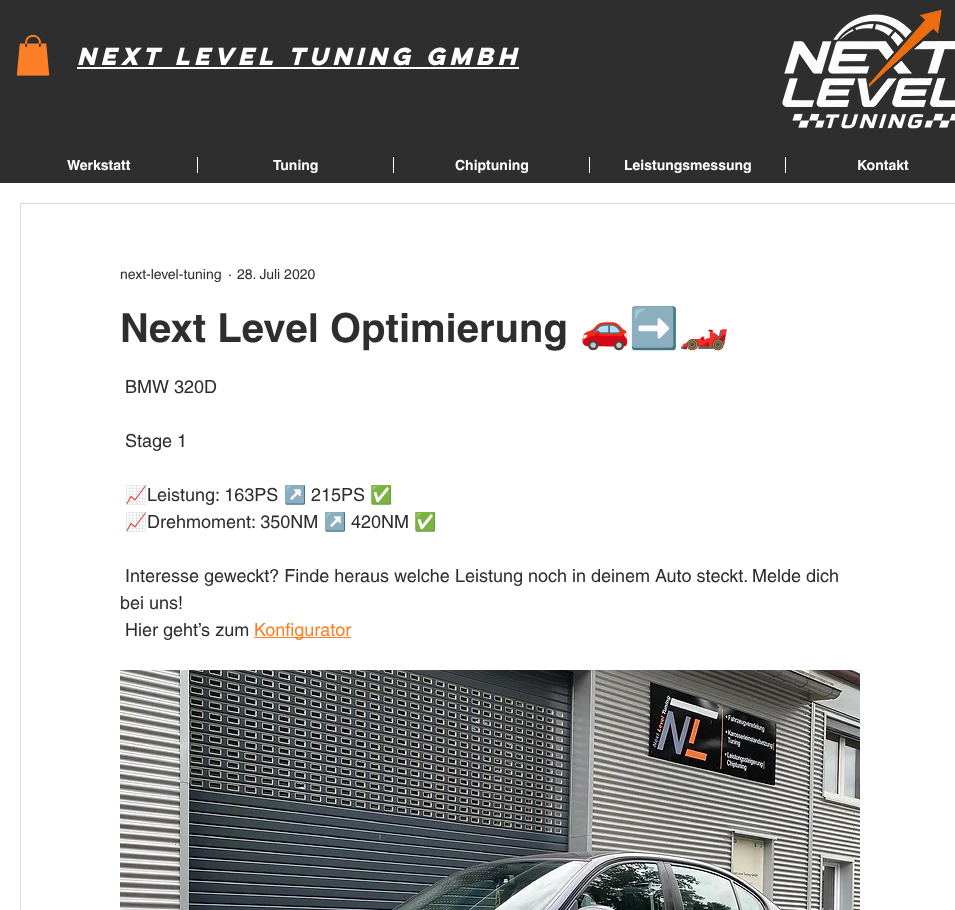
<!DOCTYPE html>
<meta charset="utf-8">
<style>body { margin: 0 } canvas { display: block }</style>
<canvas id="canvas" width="955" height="910"></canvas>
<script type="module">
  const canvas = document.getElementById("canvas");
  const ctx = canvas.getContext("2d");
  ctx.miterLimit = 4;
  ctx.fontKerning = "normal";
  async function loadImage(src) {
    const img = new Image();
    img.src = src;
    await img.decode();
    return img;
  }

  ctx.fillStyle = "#2f2e2e";
  ctx.fillRect(0, 0, 955, 910);
  ctx.drawImage(await loadImage("img1.png"), 16, 35, 34, 41);
  ctx.font = "italic bold 22px 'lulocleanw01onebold'";
  ctx.fillStyle = "#ffffff";
  ctx.fillText("Next Level Tuning GmbH", 77, 65);
  ctx.fillRect(77, 67, 442, 2);
  ctx.drawImage(await loadImage("img2.png"), 782, 9, 173, 120);
  ctx.font = "bold 14px helvetica";
  ctx.fillText("Werkstatt", 67, 170);
  ctx.fillRect(197, 157, 1, 16);
  ctx.fillText("Tuning", 273, 170);
  ctx.fillRect(393, 157, 1, 16);
  ctx.fillText("Chiptuning", 455, 170);
  ctx.fillRect(589, 157, 1, 16);
  ctx.fillText("Leistungsmessung", 624, 170);
  ctx.fillRect(785, 157, 1, 16);
  ctx.fillText("Kontakt", 857, 170);
  ctx.fillRect(0, 183, 955, 727);
  ctx.strokeStyle = "#d9d9d9";
  ctx.strokeRect(20.5, 203.5, 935, 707);
  ctx.font = "14px helvetica";
  ctx.fillStyle = "#2f2e2e";
  ctx.fillText("next-level-tuning", 120, 279);
  ctx.fillText("·", 228, 279);
  ctx.fillText("28. Juli 2020", 237, 279);
  ctx.font = "bold 40px helvetica";
  ctx.fillText("Next Level Optimierung", 120, 342);
  ctx.font = "40px Noto Color Emoji";
  ctx.fillText("🚗➡️🏎", 580, 342);
  ctx.font = "18px helvetica";
  ctx.fillText("BMW 320D", 125, 393);
  ctx.fillText("Stage 1", 125, 447);
  ctx.font = "18px Noto Color Emoji";
  ctx.fillText("📈", 125, 501);
  ctx.font = "18px helvetica";
  ctx.fillText("Leistung: 163PS", 147, 501);
  ctx.font = "18px Noto Color Emoji";
  ctx.fillText("↗️", 284, 501);
  ctx.font = "18px helvetica";
  ctx.fillText("215PS", 311, 501);
  ctx.font = "18px Noto Color Emoji";
  ctx.fillText("✅", 370, 501);
  ctx.fillText("📈", 125, 528);
  ctx.font = "18px helvetica";
  ctx.fillText("Drehmoment: 350NM", 147, 528);
  ctx.font = "18px Noto Color Emoji";
  ctx.fillText("↗️", 324, 528);
  ctx.font = "18px helvetica";
  ctx.fillText("420NM", 351, 528);
  ctx.font = "18px Noto Color Emoji";
  ctx.fillText("✅", 414, 528);
  ctx.font = "18px helvetica";
  ctx.fillText("Interesse geweckt? Finde heraus welche Leistung noch in deinem Auto steckt. Melde dich", 125, 582);
  ctx.fillText("bei uns!", 120, 609);
  ctx.fillText("Hier geht’s zum", 125, 636);
  ctx.fillStyle = "#ff7f26";
  ctx.fillRect(254, 637, 97, 1);
  ctx.fillText("Konfigurator", 254, 636);
  ctx.drawImage(await loadImage("img3.png"), 120, 670, 740, 240);
</script>
